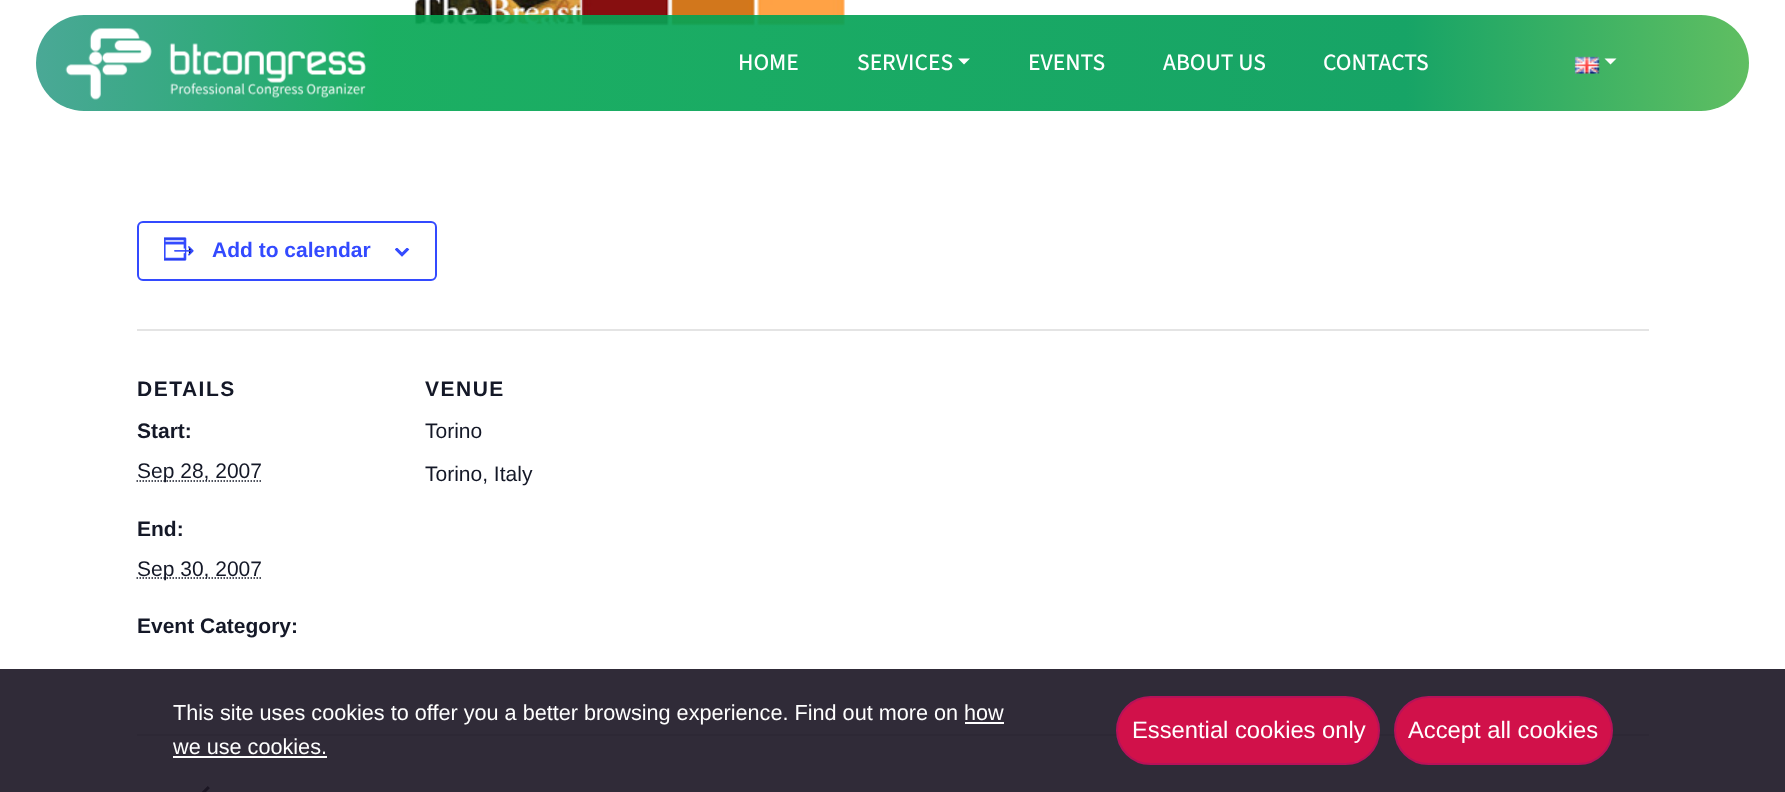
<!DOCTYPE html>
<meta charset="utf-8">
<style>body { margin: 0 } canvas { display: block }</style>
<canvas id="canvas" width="1785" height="792"></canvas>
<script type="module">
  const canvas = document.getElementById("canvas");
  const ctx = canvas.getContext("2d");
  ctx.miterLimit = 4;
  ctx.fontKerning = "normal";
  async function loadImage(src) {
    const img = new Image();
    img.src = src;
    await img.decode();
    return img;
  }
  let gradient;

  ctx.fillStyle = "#ffffff";
  ctx.fillRect(0, 0, 1785, 792);
  ctx.drawImage(await loadImage("img3.png"), 413, 0, 432, 28);
  gradient = ctx.createLinearGradient(36, 63, 1749, 63);
  gradient.addColorStop(0, "rgba(0, 133, 107, 0.71)");
  gradient.addColorStop(0.2, "rgba(5, 167, 83, 0.91)");
  gradient.addColorStop(0.8, "rgba(0, 155, 87, 0.91)");
  gradient.addColorStop(1, "rgba(80, 184, 82, 0.91)");
  ctx.fillStyle = gradient;
  ctx.beginPath();
  ctx.roundRect(36, 15, 1713, 96, 48);
  ctx.fill();
  ctx.drawImage(await loadImage("img1.png"), 65, 28, 301, 72);
  ctx.font = "500 23.5px 'Source Sans 3'";
  ctx.fillStyle = "#ffffff";
  ctx.fillText("HOME", 738, 70);
  ctx.fillText("SERVICES", 857, 70);
  ctx.beginPath();
  ctx.moveTo(958, 58.5);
  ctx.lineTo(970, 58.5);
  ctx.lineTo(964, 64.5);
  ctx.closePath();
  ctx.fill();
  ctx.fillText("EVENTS", 1028, 70);
  ctx.fillText("ABOUT US", 1163, 70);
  ctx.fillText("CONTACTS", 1323, 70);
  ctx.drawImage(await loadImage("img2.png"), 1574, 56, 26, 18);
  ctx.beginPath();
  ctx.moveTo(1604.5, 58.5);
  ctx.lineTo(1616.5, 58.5);
  ctx.lineTo(1610.5, 64.5);
  ctx.closePath();
  ctx.fill();
  ctx.beginPath();
  ctx.roundRect(138, 222, 298, 58, 5);
  ctx.strokeStyle = "#334aff";
  ctx.lineWidth = 2;
  ctx.stroke();
  ctx.drawImage(await loadImage("img4.png"), 164, 237, 30, 24);
  ctx.font = "bold 21px Liberation Sans";
  ctx.fillStyle = "#334aff";
  ctx.fillText("Add to calendar", 212, 257);
  ctx.drawImage(await loadImage("img5.png"), 395, 248, 15, 9);
  ctx.fillStyle = "#e4e4e4";
  ctx.fillRect(137, 329, 1512, 2);
  ctx.letterSpacing = "1.5px";
  ctx.fillStyle = "#141827";
  ctx.fillText("DETAILS", 137, 396);
  ctx.letterSpacing = "0px";
  ctx.fillText("Start:", 137, 438);
  ctx.beginPath();
  ctx.moveTo(136.5, 481);
  ctx.lineTo(261.5, 481);
  ctx.strokeStyle = "#141827";
  ctx.lineWidth = 1.5;
  ctx.setLineDash([1.5, 1.5]);
  ctx.stroke();
  ctx.font = "21px Liberation Sans";
  ctx.fillText("Sep 28, 2007", 137, 478);
  ctx.font = "bold 21px Liberation Sans";
  ctx.fillText("End:", 137, 536);
  ctx.beginPath();
  ctx.moveTo(136.5, 578);
  ctx.lineTo(261.5, 578);
  ctx.stroke();
  ctx.font = "21px Liberation Sans";
  ctx.fillText("Sep 30, 2007", 137, 576);
  ctx.font = "bold 21px Liberation Sans";
  ctx.fillText("Event Category:", 137, 633);
  ctx.letterSpacing = "1.5px";
  ctx.fillText("VENUE", 425, 396);
  ctx.letterSpacing = "0px";
  ctx.font = "21px Liberation Sans";
  ctx.fillText("Torino", 425, 438);
  ctx.fillText("Torino, Italy", 425, 481);
  ctx.fillStyle = "#e4e4e4";
  ctx.fillRect(137, 734, 1512, 2);
  ctx.drawImage(await loadImage("img6.png"), 201, 786, 9, 6);
  ctx.fillStyle = "rgba(17, 11, 26, 0.87)";
  ctx.fillRect(0, 669, 1785, 123);
  ctx.font = "21.65px Liberation Sans";
  ctx.fillStyle = "#ffffff";
  ctx.fillText("This site uses cookies to offer you a better browsing experience. Find out more on", 173, 720);
  ctx.fillText("how", 964, 720);
  ctx.fillRect(965, 722, 39, 2);
  ctx.fillText("we use cookies.", 173, 754);
  ctx.fillRect(173, 756, 154, 2);
  ctx.fillStyle = "#d1114a";
  ctx.beginPath();
  ctx.roundRect(1117, 697, 262, 67, 33.5);
  ctx.fill();
  ctx.strokeStyle = "#b71259";
  ctx.lineWidth = 2;
  ctx.setLineDash([]);
  ctx.stroke();
  ctx.font = "23.75px Liberation Sans";
  ctx.fillStyle = "#ffffff";
  ctx.fillText("Essential cookies only", 1132, 738);
  ctx.fillStyle = "#d1114a";
  ctx.beginPath();
  ctx.roundRect(1395, 697, 217, 67, 33.5);
  ctx.fill();
  ctx.stroke();
  ctx.fillStyle = "#ffffff";
  ctx.fillText("Accept all cookies", 1408, 738);
</script>
